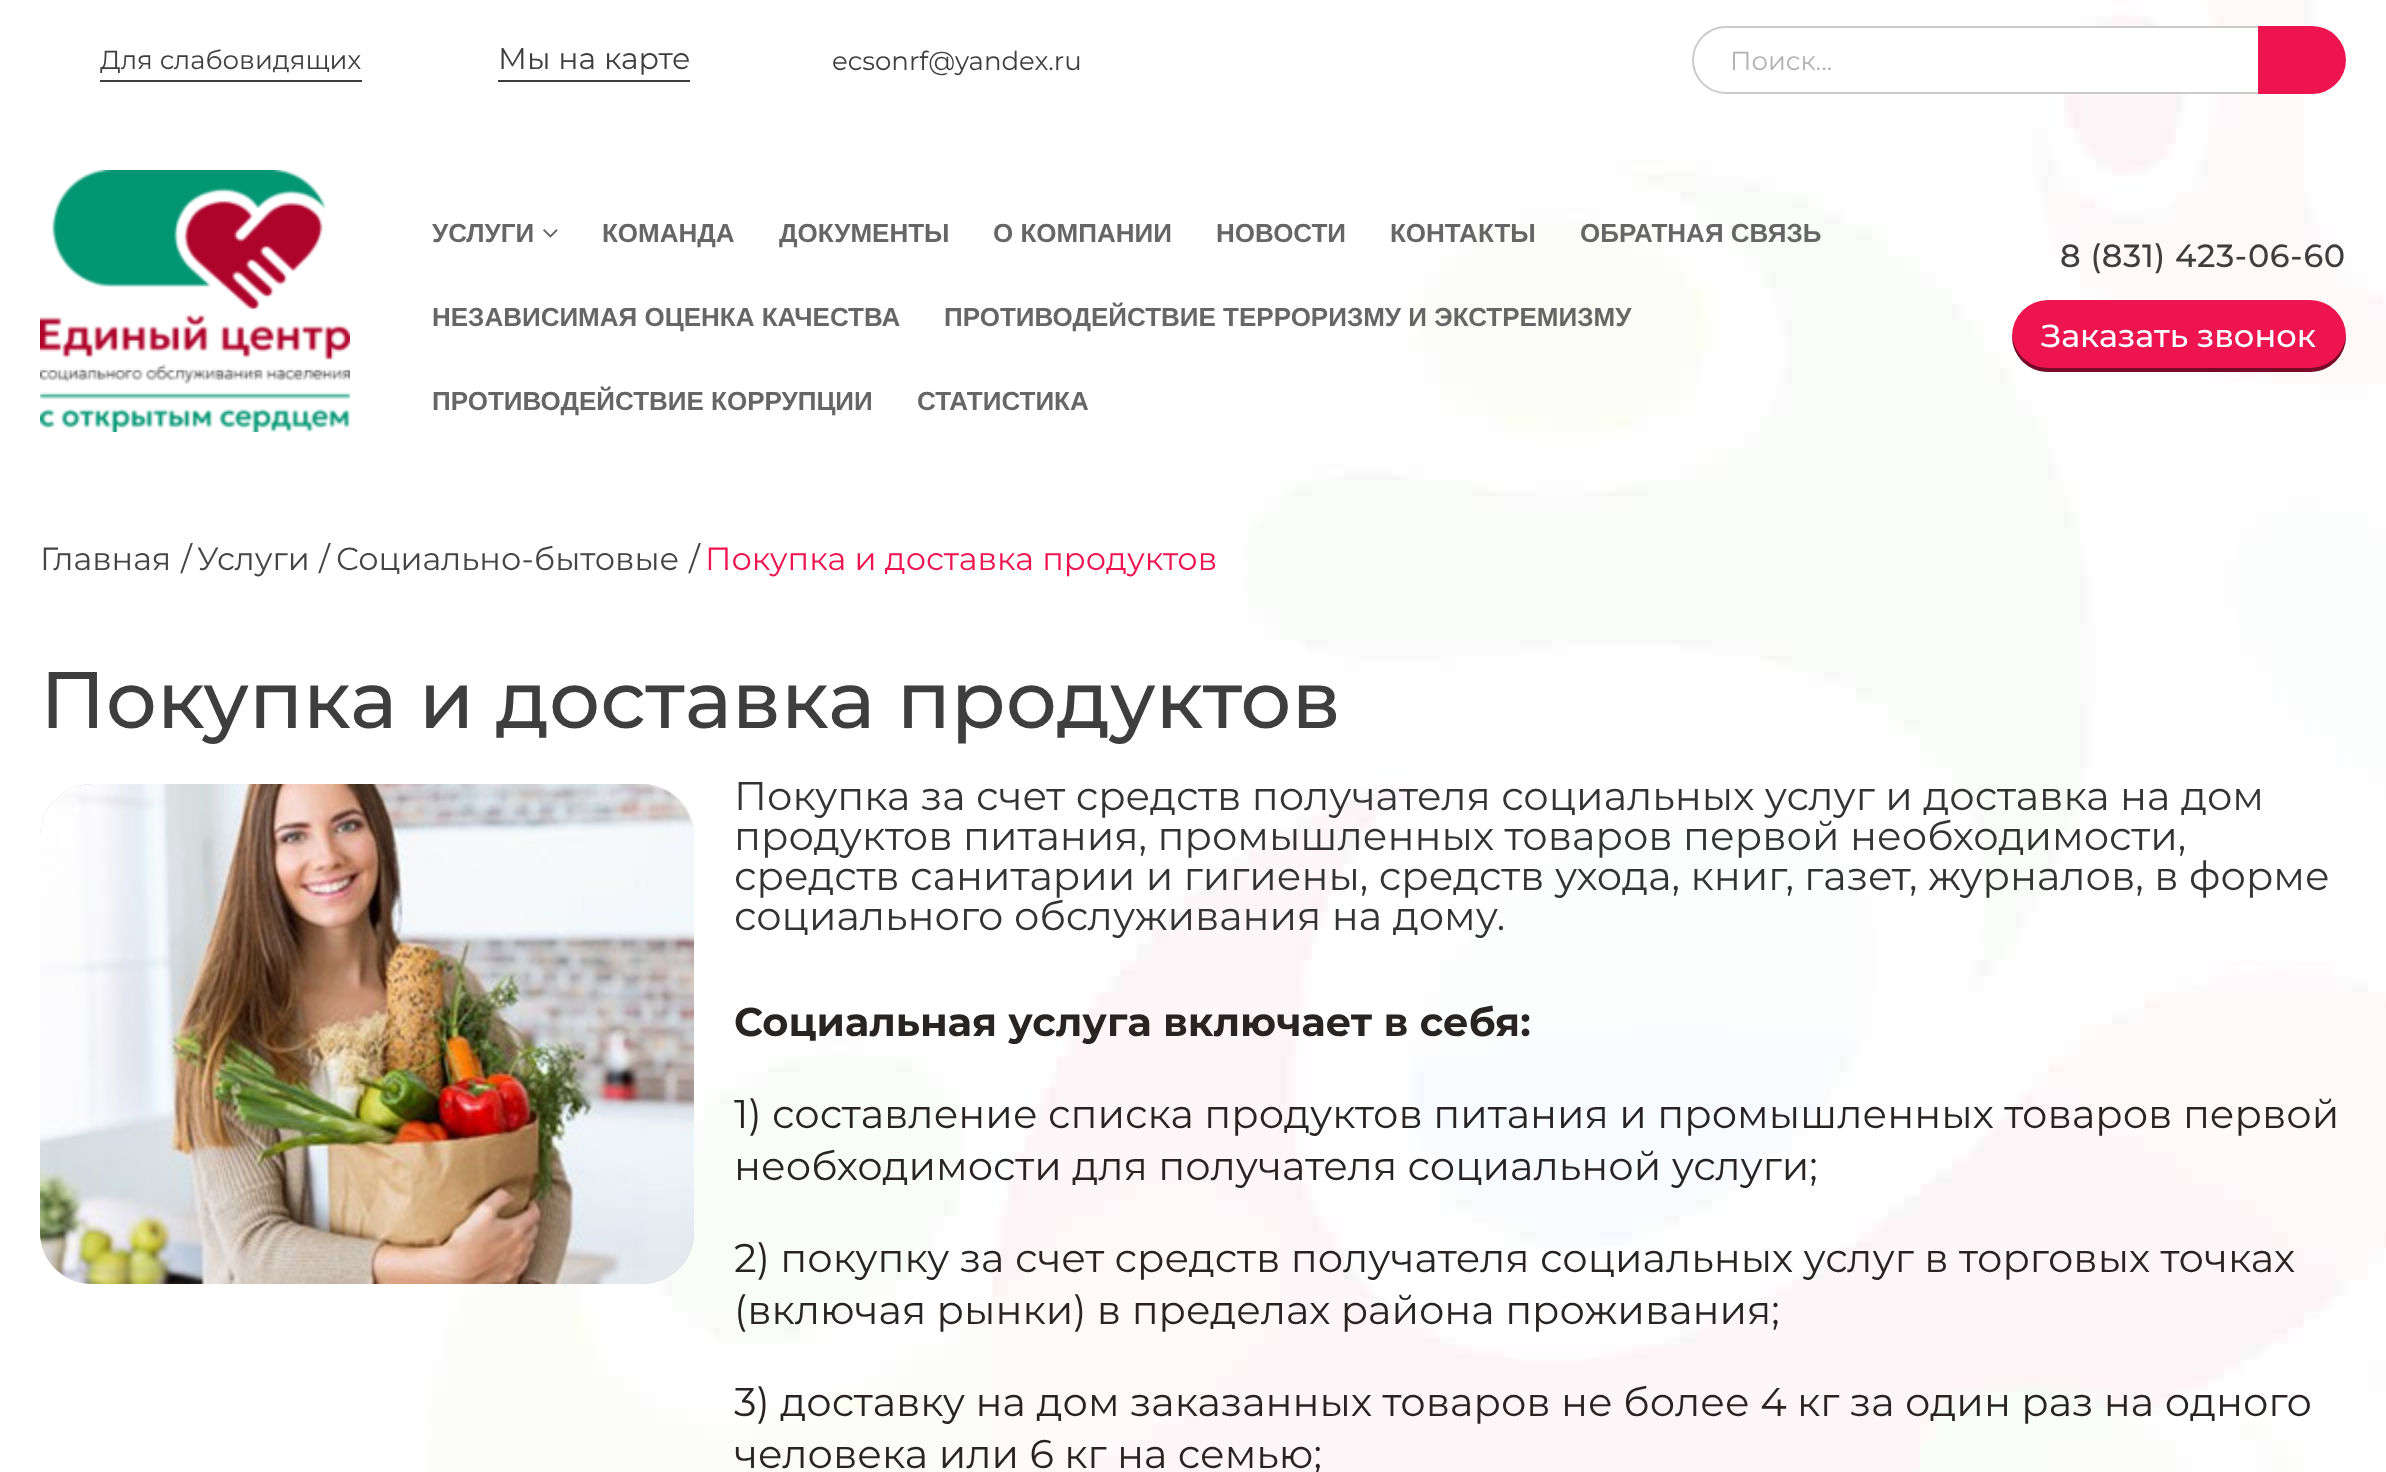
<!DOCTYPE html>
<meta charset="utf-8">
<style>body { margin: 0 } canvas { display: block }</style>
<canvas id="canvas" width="2386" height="1472"></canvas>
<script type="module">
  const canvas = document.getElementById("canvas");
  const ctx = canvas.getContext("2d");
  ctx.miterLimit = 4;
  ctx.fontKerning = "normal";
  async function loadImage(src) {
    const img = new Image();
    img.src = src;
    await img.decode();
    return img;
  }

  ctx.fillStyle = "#ffffff";
  ctx.fillRect(0, 0, 2386, 1472);
  ctx.drawImage(await loadImage("img1.png"), 426, 0, 1960, 1472);
  ctx.fillStyle = "#3e3e3f";
  ctx.fillRect(100, 80, 262, 2);
  ctx.font = "26px Montserrat";
  ctx.fillText("Для слабовидящих", 100, 69);
  ctx.fillRect(498, 80, 192, 2);
  ctx.font = "30px Montserrat";
  ctx.fillText("Мы на карте", 498, 69);
  ctx.font = "26px Montserrat";
  ctx.fillText("ecsonrf@yandex.ru", 832, 70);
  ctx.fillStyle = "#ffffff";
  ctx.beginPath();
  ctx.roundRect(1693, 27, 618, 66, 33);
  ctx.fill();
  ctx.strokeStyle = "#cbcbcb";
  ctx.lineWidth = 2;
  ctx.stroke();
  ctx.fillStyle = "#b2b2b2";
  ctx.fillText("Поиск...", 1730, 70);
  ctx.fillStyle = "#ed1450";
  ctx.beginPath();
  ctx.roundRect(2258, 26, 88, 68, [0, 34, 34, 0]);
  ctx.fill();
  ctx.drawImage(await loadImage("img2.png"), 40, 170, 310, 262);
  ctx.font = "bold 26px Liberation Sans";
  ctx.fillStyle = "#666666";
  ctx.fillText("УСЛУГИ", 432, 242);
  ctx.drawImage(await loadImage("img3.png"), 543, 229, 15, 9);
  ctx.fillText("КОМАНДА", 602, 242);
  ctx.fillText("ДОКУМЕНТЫ", 779, 242);
  ctx.fillText("О КОМПАНИИ", 993, 242);
  ctx.fillText("НОВОСТИ", 1216, 242);
  ctx.fillText("КОНТАКТЫ", 1390, 242);
  ctx.fillText("ОБРАТНАЯ СВЯЗЬ", 1580, 242);
  ctx.fillText("НЕЗАВИСИМАЯ ОЦЕНКА КАЧЕСТВА", 432, 326);
  ctx.fillText("ПРОТИВОДЕЙСТВИЕ ТЕРРОРИЗМУ И ЭКСТРЕМИЗМУ", 944, 326);
  ctx.fillText("ПРОТИВОДЕЙСТВИЕ КОРРУПЦИИ", 432, 410);
  ctx.fillText("СТАТИСТИКА", 917, 410);
  ctx.letterSpacing = "0.6px";
  ctx.font = "500 32px Montserrat";
  ctx.fillStyle = "#3e3e3f";
  ctx.fillText("8 (831) 423-06-60", 2060, 267);
  ctx.fillStyle = "#ed1450";
  ctx.beginPath();
  ctx.roundRect(2012, 300, 334, 72, 36);
  ctx.fill();
  ctx.fillStyle = "rgba(0, 0, 0, 0.5)";
  ctx.beginPath();
  ctx.moveTo(2012, 334);
  ctx.lineTo(2012, 336);
  ctx.bezierCurveTo(2012, 356, 2028, 372, 2048, 372);
  ctx.lineTo(2310, 372);
  ctx.bezierCurveTo(2330, 372, 2346, 356, 2346, 336);
  ctx.lineTo(2346, 334);
  ctx.bezierCurveTo(2345, 353, 2329, 368, 2310, 368);
  ctx.lineTo(2048, 368);
  ctx.bezierCurveTo(2029, 368, 2013, 353, 2012, 334);
  ctx.closePath();
  ctx.fill();
  ctx.letterSpacing = "0px";
  ctx.fillStyle = "#ffffff";
  ctx.fillText("Заказать звонок", 2041, 347);
  ctx.font = "32px Montserrat";
  ctx.fillStyle = "#454545";
  ctx.fillText("Главная", 40, 570);
  ctx.fillText("/", 181, 570);
  ctx.fillText("Услуги", 197, 570);
  ctx.fillText("/", 319, 570);
  ctx.fillText("Социально-бытовые", 336, 570);
  ctx.fillText("/", 689, 570);
  ctx.fillStyle = "#ed1450";
  ctx.fillText("Покупка и доставка продуктов", 705, 570);
  ctx.font = "500 80px Montserrat";
  ctx.fillStyle = "#3e3e3f";
  ctx.fillText("Покупка и доставка продуктов", 40, 728);
  ctx.fillStyle = "#c7c7c7";
  ctx.beginPath();
  ctx.roundRect(40, 784, 654, 500, 52);
  ctx.fill();
  ctx.drawImage(await loadImage("img4.png"), 40, 784, 654, 500);
  ctx.font = "40px Montserrat";
  ctx.fillStyle = "#333333";
  ctx.fillText("Покупка за счет средств получателя социальных услуг и доставка на дом", 734, 810);
  ctx.fillText("продуктов питания, промышленных товаров первой необходимости,", 734, 850);
  ctx.fillText("средств санитарии и гигиены, средств ухода, книг, газет, журналов, в форме", 734, 890);
  ctx.fillText("социального обслуживания на дому.", 734, 930);
  ctx.font = "bold 40px Montserrat";
  ctx.fillStyle = "#282423";
  ctx.fillText("Социальная услуга включает в себя:", 734, 1036);
  ctx.font = "40px Montserrat";
  ctx.fillText("1) составление списка продуктов питания и промышленных товаров первой", 734, 1128);
  ctx.fillText("необходимости для получателя социальной услуги;", 734, 1180);
  ctx.fillText("2) покупку за счет средств получателя социальных услуг в торговых точках", 734, 1272);
  ctx.fillText("(включая рынки) в пределах района проживания;", 734, 1324);
  ctx.fillText("3) доставку на дом заказанных товаров не более 4 кг за один раз на одного", 734, 1416);
  ctx.fillText("человека или 6 кг на семью;", 734, 1468);
</script>
